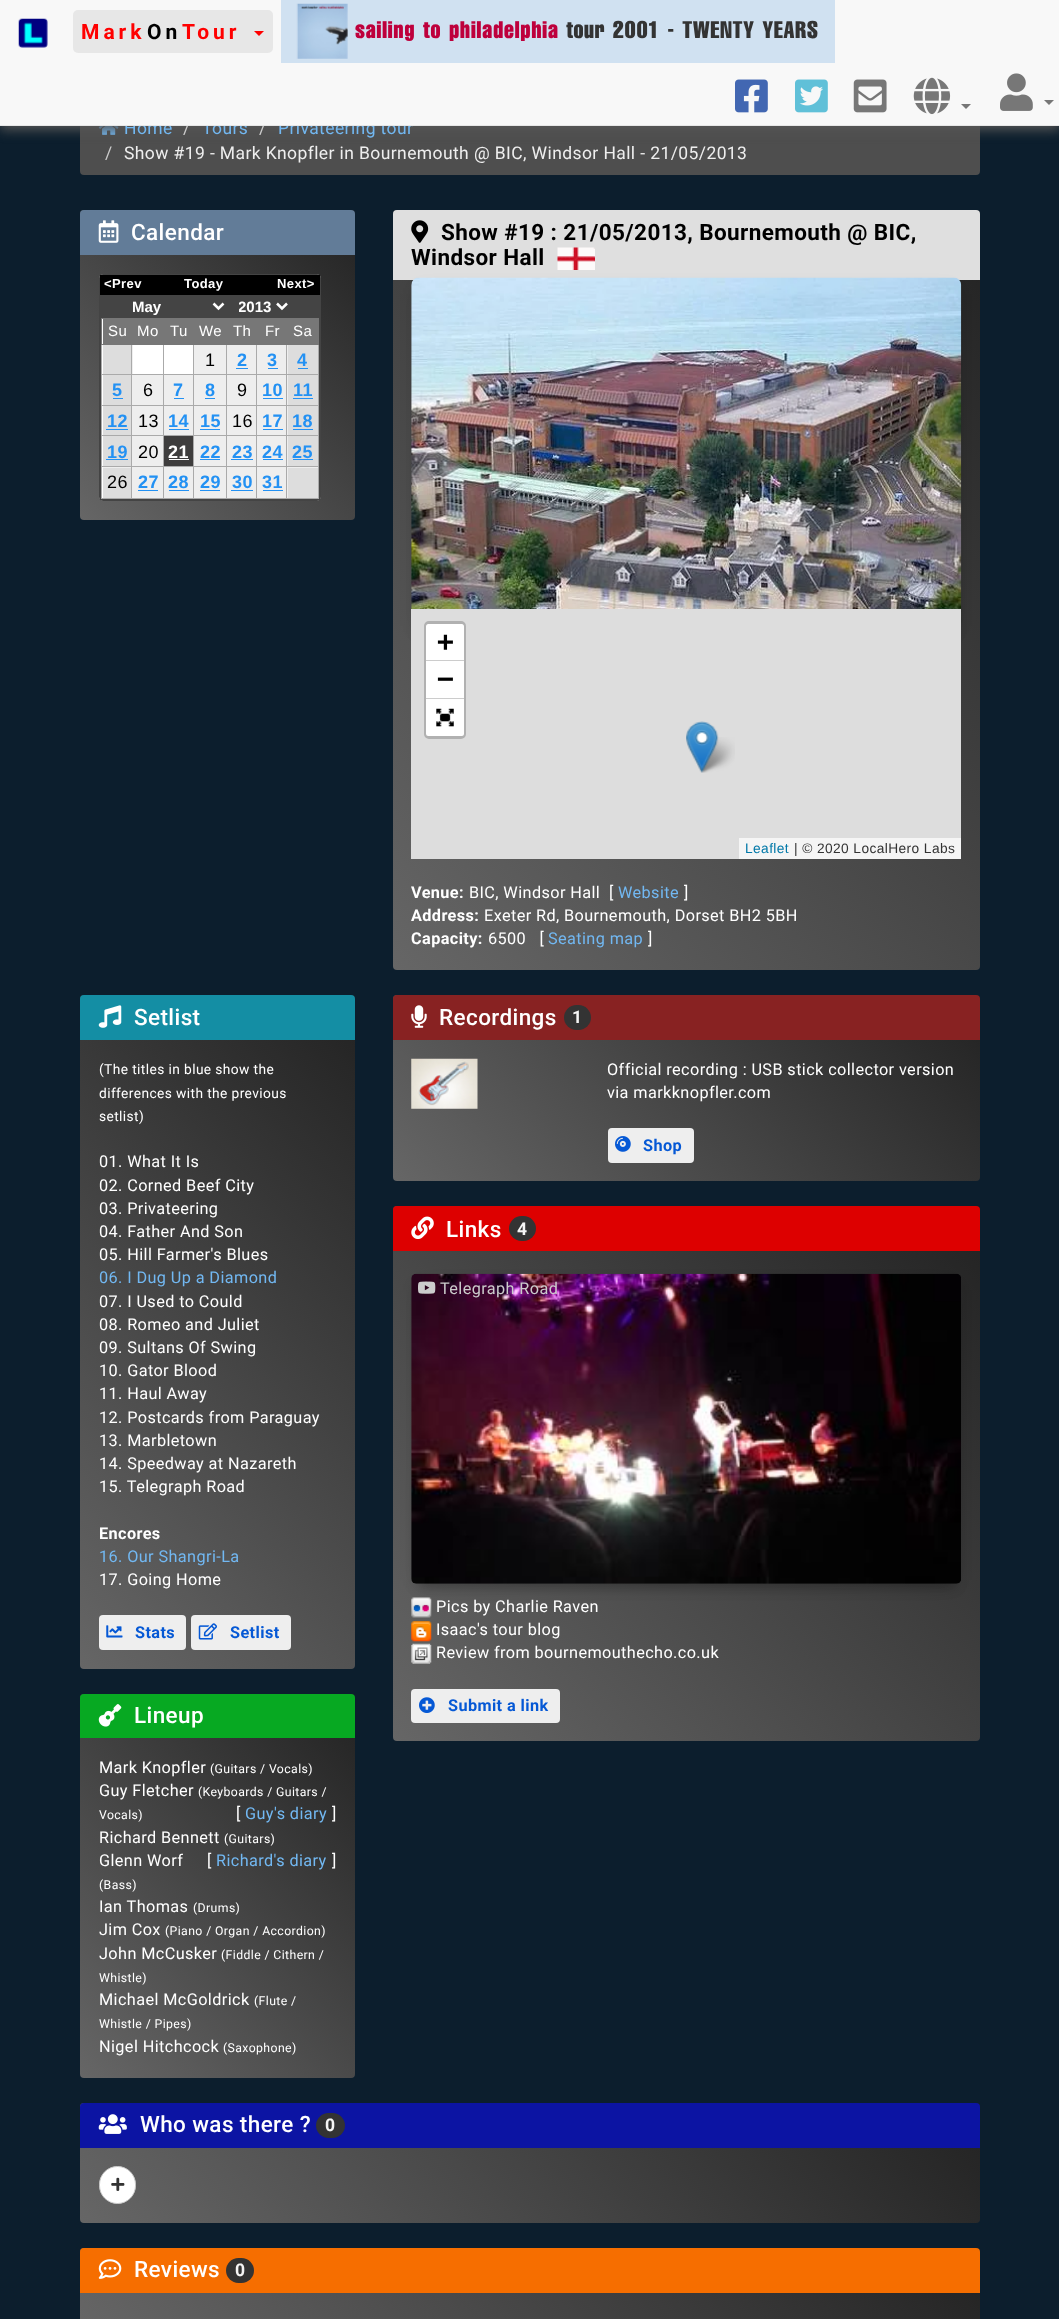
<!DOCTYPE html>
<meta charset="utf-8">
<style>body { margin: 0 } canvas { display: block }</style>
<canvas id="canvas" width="1059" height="2319"></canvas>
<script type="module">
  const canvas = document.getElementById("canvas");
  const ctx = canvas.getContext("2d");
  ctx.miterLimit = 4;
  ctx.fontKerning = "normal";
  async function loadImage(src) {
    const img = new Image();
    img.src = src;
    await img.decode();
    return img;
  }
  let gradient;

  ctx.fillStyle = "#0c1e2d";
  ctx.fillRect(0, 0, 1059, 2319);
  ctx.fillStyle = "#4e4e4e";
  ctx.beginPath();
  ctx.roundRect(80, 105, 900, 70, 4);
  ctx.fill();
  ctx.drawImage(await loadImage("img8.png"), 98, 126, 21, 9);
  ctx.fillStyle = "#555555";
  ctx.filter = "blur(6px)";
  ctx.beginPath();
  ctx.rect(0, 4, 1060, 126);
  ctx.fill();
  ctx.filter = "none";
  ctx.letterSpacing = "0.4px";
  ctx.font = "17.5px Roboto";
  ctx.fillStyle = "#72b8f2";
  ctx.fillText("Home", 124, 134);
  ctx.fillStyle = "#cccccc";
  ctx.fillText("/", 183, 134);
  ctx.fillStyle = "#72b8f2";
  ctx.fillText("Tours", 202, 134);
  ctx.fillStyle = "#cccccc";
  ctx.fillText("/", 259, 134);
  ctx.fillStyle = "#72b8f2";
  ctx.fillText("Privateering tour", 278, 134);
  ctx.fillStyle = "#f8f8f8";
  ctx.fillRect(0, 0, 1059, 125);
  ctx.fillStyle = "#e7e7e7";
  ctx.fillRect(0, 125, 1059, 1);
  ctx.drawImage(await loadImage("img1.png"), 18, 18, 30, 30);
  ctx.beginPath();
  ctx.roundRect(73, 10, 200, 43, 5);
  ctx.fill();
  ctx.letterSpacing = "4px";
  ctx.font = "bold 21px Roboto";
  ctx.fillStyle = "#ff0000";
  ctx.fillText("Mark", 81, 39);
  ctx.fillStyle = "#000000";
  ctx.fillText("On", 147, 39);
  ctx.fillStyle = "#ff0000";
  ctx.fillText("Tour", 182, 39);
  ctx.beginPath();
  ctx.moveTo(254, 31);
  ctx.lineTo(264, 31);
  ctx.lineTo(259, 36);
  ctx.closePath();
  ctx.fill();
  ctx.fillStyle = "#d0e1f1";
  ctx.fillRect(281, 0, 554, 63);
  ctx.drawImage(await loadImage("img2.png"), 296, 3, 52, 56);
  ctx.letterSpacing = "0.5px";
  ctx.font = "23.4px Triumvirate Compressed";
  ctx.fillStyle = "#be003c";
  ctx.fillText("sailing to philadelphia", 355, 38);
  ctx.letterSpacing = "0.3px";
  ctx.fillStyle = "#333333";
  ctx.fillText("tour 2001 - TWENTY YEARS", 566, 38);
  ctx.drawImage(await loadImage("img3.png"), 735, 79, 33, 34);
  ctx.drawImage(await loadImage("img4.png"), 795, 79, 33, 34);
  ctx.drawImage(await loadImage("img5.png"), 853, 79, 34, 34);
  ctx.drawImage(await loadImage("img6.png"), 913, 77, 38, 38);
  ctx.fillStyle = "#777777";
  ctx.beginPath();
  ctx.moveTo(961, 104);
  ctx.lineTo(971, 104);
  ctx.lineTo(966, 109);
  ctx.closePath();
  ctx.fill();
  ctx.drawImage(await loadImage("img7.png"), 1000, 73, 33, 38);
  ctx.beginPath();
  ctx.moveTo(1044, 100);
  ctx.lineTo(1054, 100);
  ctx.lineTo(1049, 105);
  ctx.closePath();
  ctx.fill();
  ctx.letterSpacing = "0.4px";
  ctx.font = "17.5px Roboto";
  ctx.fillStyle = "#cccccc";
  ctx.fillText("/", 105, 159);
  ctx.fillStyle = "#eeeeee";
  ctx.fillText("Show #19 - Mark Knopfler in Bournemouth @ BIC, Windsor Hall - 21/05/2013", 124, 159);
  gradient = ctx.createLinearGradient(71, 511, 364, 219);
  gradient.addColorStop(0, "#666666");
  gradient.addColorStop(1, "#222222");
  ctx.fillStyle = gradient;
  ctx.beginPath();
  ctx.roundRect(80, 210, 275, 310, 4);
  ctx.fill();
  ctx.fillStyle = "#627c98";
  ctx.beginPath();
  ctx.roundRect(80, 210, 275, 45, [4, 4, 0, 0]);
  ctx.fill();
  ctx.drawImage(await loadImage("img9.png"), 98, 220, 21, 23);
  ctx.font = "500 22.5px Roboto";
  ctx.fillStyle = "#ffffff";
  ctx.fillText("Calendar", 131, 240);
  ctx.beginPath();
  ctx.roundRect(99.5, 274.5, 221, 226, 3.5);
  ctx.fill();
  ctx.strokeStyle = "#444444";
  ctx.stroke();
  ctx.fillStyle = "#000000";
  ctx.fillRect(100, 275, 220, 20);
  ctx.font = "bold 13px Liberation Sans";
  ctx.fillStyle = "#ffffff";
  ctx.fillText("<Prev", 104, 288);
  ctx.fillText("Today", 184, 288);
  ctx.fillText("Next>", 277, 288);
  ctx.strokeRect(100.5, 295.5, 219, 204);
  ctx.fillStyle = "#444444";
  ctx.fillRect(101, 296, 218, 22);
  ctx.beginPath();
  ctx.moveTo(213.5, 303.5);
  ctx.lineTo(218.5, 308.5);
  ctx.lineTo(223.5, 303.5);
  ctx.strokeStyle = "#ffffff";
  ctx.lineWidth = 2.5;
  ctx.stroke();
  ctx.letterSpacing = "0px";
  ctx.font = "bold 15px Liberation Sans";
  ctx.fillStyle = "#ffffff";
  ctx.fillText("May", 132, 312);
  ctx.beginPath();
  ctx.moveTo(277, 303.5);
  ctx.lineTo(282, 308.5);
  ctx.lineTo(287, 303.5);
  ctx.stroke();
  ctx.save();
  ctx.beginPath();
  ctx.rect(239, 296, 34, 19);
  ctx.clip();
  ctx.fillText("2013", 238, 312);
  ctx.restore();
  ctx.fillStyle = "#777777";
  ctx.fillRect(103, 319, 215, 25);
  ctx.fillRect(101, 318, 218, 1);
  ctx.fillStyle = "#aaaaaa";
  ctx.fillRect(286, 374, 33, 1);
  ctx.fillRect(286, 405, 33, 1);
  ctx.fillRect(286, 435, 33, 1);
  ctx.fillStyle = "#eeeeee";
  ctx.fillRect(227, 436, 61, 32);
  ctx.fillStyle = "#aaaaaa";
  ctx.fillRect(286, 466, 33, 1);
  ctx.fillRect(318, 466, 1, 33);
  ctx.fillRect(318, 435, 1, 33);
  ctx.fillRect(318, 405, 1, 31);
  ctx.fillRect(318, 344, 1, 62);
  ctx.fillStyle = "#777777";
  ctx.fillRect(318, 318, 1, 27);
  ctx.fillStyle = "#eeeeee";
  ctx.fillRect(227, 375, 61, 30);
  ctx.fillRect(227, 406, 61, 29);
  ctx.fillRect(227, 468, 61, 30);
  ctx.fillStyle = "#aaaaaa";
  ctx.fillRect(286, 498, 33, 1);
  ctx.fillRect(286, 466, 1, 33);
  ctx.fillRect(256, 466, 32, 1);
  ctx.fillRect(286, 435, 1, 33);
  ctx.fillRect(256, 435, 32, 1);
  ctx.fillRect(286, 405, 1, 31);
  ctx.fillRect(256, 405, 32, 1);
  ctx.fillRect(286, 374, 1, 32);
  ctx.fillRect(256, 374, 32, 1);
  ctx.fillRect(256, 498, 32, 1);
  ctx.fillRect(256, 466, 1, 33);
  ctx.fillRect(226, 466, 32, 1);
  ctx.fillRect(256, 435, 1, 33);
  ctx.fillRect(226, 435, 32, 1);
  ctx.fillRect(256, 405, 1, 31);
  ctx.fillRect(226, 405, 32, 1);
  ctx.fillRect(256, 374, 1, 32);
  ctx.fillRect(226, 374, 32, 1);
  ctx.fillStyle = "#eeeeee";
  ctx.fillRect(194, 436, 32, 62);
  ctx.fillStyle = "#aaaaaa";
  ctx.fillRect(226, 498, 32, 1);
  ctx.fillRect(226, 466, 1, 33);
  ctx.fillRect(193, 466, 35, 1);
  ctx.fillRect(226, 435, 1, 33);
  ctx.fillRect(193, 435, 35, 1);
  ctx.fillRect(226, 405, 1, 31);
  ctx.fillRect(193, 405, 35, 1);
  ctx.fillRect(226, 374, 1, 32);
  ctx.fillRect(193, 374, 35, 1);
  ctx.fillRect(193, 498, 35, 1);
  ctx.fillRect(193, 466, 1, 33);
  ctx.fillRect(163, 466, 31, 1);
  ctx.fillRect(193, 435, 1, 33);
  ctx.fillRect(163, 435, 31, 1);
  ctx.fillRect(193, 405, 1, 31);
  ctx.fillRect(163, 405, 31, 1);
  ctx.fillRect(193, 374, 1, 32);
  ctx.fillRect(163, 374, 31, 1);
  ctx.fillStyle = "#eeeeee";
  ctx.fillRect(103, 436, 60, 32);
  ctx.fillStyle = "#aaaaaa";
  ctx.fillRect(163, 498, 31, 1);
  ctx.fillRect(163, 466, 1, 33);
  ctx.fillRect(131, 466, 33, 1);
  ctx.fillRect(163, 435, 1, 33);
  ctx.fillRect(131, 435, 33, 1);
  ctx.fillRect(163, 405, 1, 31);
  ctx.fillRect(131, 405, 33, 1);
  ctx.fillRect(163, 374, 1, 32);
  ctx.fillRect(131, 374, 33, 1);
  ctx.fillRect(131, 498, 33, 1);
  ctx.fillRect(131, 466, 1, 33);
  ctx.fillRect(101, 466, 32, 1);
  ctx.fillRect(131, 435, 1, 33);
  ctx.fillRect(101, 435, 32, 1);
  ctx.fillRect(131, 405, 1, 31);
  ctx.fillRect(101, 405, 32, 1);
  ctx.fillRect(131, 374, 1, 32);
  ctx.fillRect(101, 374, 32, 1);
  ctx.fillRect(131, 344, 1, 31);
  ctx.fillRect(163, 344, 1, 31);
  ctx.fillRect(193, 344, 1, 31);
  ctx.fillRect(226, 344, 1, 31);
  ctx.fillStyle = "#eeeeee";
  ctx.fillRect(227, 345, 61, 29);
  ctx.fillStyle = "#aaaaaa";
  ctx.fillRect(256, 344, 1, 31);
  ctx.fillRect(286, 344, 1, 31);
  ctx.fillRect(101, 498, 32, 1);
  ctx.fillRect(101, 466, 1, 33);
  ctx.fillRect(101, 435, 1, 33);
  ctx.fillRect(101, 405, 1, 31);
  ctx.fillRect(101, 344, 1, 62);
  ctx.fillStyle = "#777777";
  ctx.fillRect(101, 344, 218, 1);
  ctx.fillRect(101, 318, 1, 27);
  ctx.letterSpacing = "0.4px";
  ctx.font = "15px Liberation Sans";
  ctx.fillStyle = "#ffffff";
  ctx.fillText("Su", 108, 336);
  ctx.fillText("Mo", 137, 336);
  ctx.fillText("Tu", 170, 336);
  ctx.fillText("We", 199, 336);
  ctx.fillText("Th", 233, 336);
  ctx.fillText("Fr", 265, 336);
  ctx.fillText("Sa", 293, 336);
  ctx.fillStyle = "#eeeeee";
  ctx.fillRect(132, 345, 1, 29);
  ctx.fillStyle = "#dddddd";
  ctx.fillRect(103, 345, 28, 29);
  ctx.fillStyle = "#eeeeee";
  ctx.fillRect(194, 345, 32, 29);
  ctx.font = "18px Liberation Sans";
  ctx.fillStyle = "#000000";
  ctx.fillText("1", 205, 366);
  ctx.font = "bold 18px Liberation Sans";
  ctx.fillStyle = "#2391f3";
  ctx.fillText("2", 237, 366);
  ctx.fillRect(236, 368, 12, 1);
  ctx.fillText("3", 267, 366);
  ctx.fillRect(268, 368, 10, 1);
  ctx.fillStyle = "#dddddd";
  ctx.fillRect(288, 345, 30, 29);
  ctx.fillStyle = "#2391f3";
  ctx.fillText("4", 297, 366);
  ctx.fillRect(298, 368, 10, 1);
  ctx.fillStyle = "#eeeeee";
  ctx.fillRect(132, 375, 31, 30);
  ctx.fillStyle = "#dddddd";
  ctx.fillRect(103, 375, 28, 30);
  ctx.fillStyle = "#2391f3";
  ctx.fillText("5", 112, 396);
  ctx.fillRect(113, 398, 10, 1);
  ctx.font = "18px Liberation Sans";
  ctx.fillStyle = "#000000";
  ctx.fillText("6", 143, 396);
  ctx.fillStyle = "#eeeeee";
  ctx.fillRect(164, 375, 29, 30);
  ctx.font = "bold 18px Liberation Sans";
  ctx.fillStyle = "#2391f3";
  ctx.fillText("7", 173, 396);
  ctx.fillRect(174, 398, 10, 1);
  ctx.fillStyle = "#eeeeee";
  ctx.fillRect(194, 375, 32, 30);
  ctx.fillStyle = "#2391f3";
  ctx.fillText("8", 205, 396);
  ctx.fillRect(205, 398, 10, 1);
  ctx.font = "18px Liberation Sans";
  ctx.fillStyle = "#000000";
  ctx.fillText("9", 237, 396);
  ctx.font = "bold 18px Liberation Sans";
  ctx.fillStyle = "#2391f3";
  ctx.fillText("10", 262, 396);
  ctx.fillRect(263, 398, 20, 1);
  ctx.fillStyle = "#dddddd";
  ctx.fillRect(288, 375, 30, 30);
  ctx.fillStyle = "#2391f3";
  ctx.fillText("11", 293, 396);
  ctx.fillRect(293, 398, 20, 1);
  ctx.fillStyle = "#eeeeee";
  ctx.fillRect(132, 406, 31, 29);
  ctx.fillStyle = "#dddddd";
  ctx.fillRect(103, 406, 28, 29);
  ctx.fillStyle = "#2391f3";
  ctx.fillText("12", 107, 427);
  ctx.fillRect(106, 429, 22, 1);
  ctx.font = "18px Liberation Sans";
  ctx.fillStyle = "#000000";
  ctx.fillText("13", 138, 427);
  ctx.fillStyle = "#eeeeee";
  ctx.fillRect(164, 406, 29, 29);
  ctx.font = "bold 18px Liberation Sans";
  ctx.fillStyle = "#2391f3";
  ctx.fillText("14", 168, 427);
  ctx.fillRect(169, 429, 20, 1);
  ctx.fillStyle = "#eeeeee";
  ctx.fillRect(194, 406, 32, 29);
  ctx.fillStyle = "#2391f3";
  ctx.fillText("15", 200, 427);
  ctx.fillRect(200, 429, 20, 1);
  ctx.font = "18px Liberation Sans";
  ctx.fillStyle = "#000000";
  ctx.fillText("16", 232, 427);
  ctx.font = "bold 18px Liberation Sans";
  ctx.fillStyle = "#2391f3";
  ctx.fillText("17", 262, 427);
  ctx.fillRect(263, 429, 20, 1);
  ctx.fillStyle = "#dddddd";
  ctx.fillRect(288, 406, 30, 29);
  ctx.fillStyle = "#2391f3";
  ctx.fillText("18", 292, 427);
  ctx.fillRect(293, 429, 20, 1);
  ctx.fillStyle = "#dddddd";
  ctx.fillRect(103, 436, 28, 30);
  ctx.fillStyle = "#2391f3";
  ctx.fillText("19", 107, 458);
  ctx.fillRect(106, 459, 22, 1);
  ctx.font = "18px Liberation Sans";
  ctx.fillStyle = "#000000";
  ctx.fillText("20", 138, 458);
  ctx.fillStyle = "#eeeeee";
  ctx.fillRect(164, 467, 29, 31);
  ctx.fillStyle = "#3e3d3d";
  ctx.fillRect(164, 436, 29, 30);
  ctx.font = "bold 18px Liberation Sans";
  ctx.fillStyle = "#ffffff";
  ctx.fillText("21", 168, 458);
  ctx.fillRect(169, 459, 20, 1);
  ctx.fillStyle = "#2391f3";
  ctx.fillText("22", 200, 458);
  ctx.fillRect(200, 459, 20, 1);
  ctx.fillText("23", 232, 458);
  ctx.fillRect(231, 459, 22, 1);
  ctx.fillText("24", 262, 458);
  ctx.fillRect(263, 459, 20, 1);
  ctx.fillStyle = "#eeeeee";
  ctx.fillRect(288, 467, 30, 1);
  ctx.fillStyle = "#dddddd";
  ctx.fillRect(288, 436, 30, 30);
  ctx.fillStyle = "#2391f3";
  ctx.fillText("25", 292, 458);
  ctx.fillRect(293, 459, 20, 1);
  ctx.fillStyle = "#eeeeee";
  ctx.fillRect(132, 468, 31, 30);
  ctx.fillStyle = "#dddddd";
  ctx.fillRect(103, 468, 28, 30);
  ctx.font = "18px Liberation Sans";
  ctx.fillStyle = "#000000";
  ctx.fillText("26", 107, 488);
  ctx.font = "bold 18px Liberation Sans";
  ctx.fillStyle = "#2391f3";
  ctx.fillText("27", 138, 488);
  ctx.fillRect(138, 490, 20, 1);
  ctx.fillText("28", 168, 488);
  ctx.fillRect(169, 490, 20, 1);
  ctx.fillText("29", 200, 488);
  ctx.fillRect(200, 490, 20, 1);
  ctx.fillText("30", 232, 488);
  ctx.fillRect(231, 490, 22, 1);
  ctx.fillText("31", 262, 488);
  ctx.fillRect(263, 490, 20, 1);
  ctx.fillStyle = "#dddddd";
  ctx.fillRect(288, 468, 30, 30);
  gradient = ctx.createLinearGradient(349, 927, 1023, 253);
  gradient.addColorStop(0, "#666666");
  gradient.addColorStop(1, "#222222");
  ctx.fillStyle = gradient;
  ctx.beginPath();
  ctx.roundRect(393, 210, 587, 760, 4);
  ctx.fill();
  ctx.fillStyle = "#dfdfdf";
  ctx.beginPath();
  ctx.roundRect(393, 210, 587, 70, [4, 4, 0, 0]);
  ctx.fill();
  ctx.drawImage(await loadImage("img10.png"), 411, 220, 18, 23);
  ctx.font = "bold 22.5px Roboto";
  ctx.fillStyle = "#000000";
  ctx.fillText("Show #19 : 21/05/2013, Bournemouth @ BIC,", 441, 240);
  ctx.fillText("Windsor Hall", 411, 265);
  ctx.drawImage(await loadImage("img11.png"), 557, 247, 38, 23);
  ctx.fillStyle = "rgba(0, 0, 0, 0.2)";
  ctx.filter = "blur(6px)";
  ctx.beginPath();
  ctx.roundRect(418, 294, 537, 340, 1);
  ctx.fill();
  ctx.filter = "none";
  ctx.fillStyle = "rgba(0, 0, 0, 0.24)";
  ctx.filter = "blur(9.5px)";
  ctx.beginPath();
  ctx.rect(421, 294, 530, 332);
  ctx.fill();
  ctx.filter = "none";
  ctx.drawImage(await loadImage("img12.png"), 411, 277, 551, 346);
  ctx.fillStyle = "#dddddd";
  ctx.fillRect(411, 609, 550, 250);
  ctx.beginPath();
  ctx.roundRect(425.5, 622.5, 39, 115, 3.5);
  ctx.strokeStyle = "#b1b1b1";
  ctx.lineWidth = 3;
  ctx.stroke();
  ctx.fillStyle = "#ffffff";
  ctx.beginPath();
  ctx.roundRect(426, 624, 38, 37, [2.5, 2.5, 0, 0]);
  ctx.fill();
  ctx.fillStyle = "#cccccc";
  ctx.fillRect(426, 660, 38, 1);
  ctx.font = "bold 28px DejaVu Sans Mono";
  ctx.fillStyle = "#000000";
  ctx.fillText("+", 437, 651);
  ctx.fillStyle = "#ffffff";
  ctx.fillRect(426, 661, 38, 37);
  ctx.fillStyle = "#cccccc";
  ctx.fillRect(426, 698, 38, 1);
  ctx.fillStyle = "#000000";
  ctx.fillText("−", 437, 688);
  ctx.fillStyle = "#ffffff";
  ctx.beginPath();
  ctx.roundRect(426, 699, 38, 37, [0, 0, 2.5, 2.5]);
  ctx.fill();
  ctx.drawImage(await loadImage("img13.png"), 436, 708, 18, 19);
  ctx.fillStyle = "#f5f5f5";
  ctx.fillRect(739, 838, 222, 21);
  ctx.font = "13.75px Liberation Sans";
  ctx.fillStyle = "#0078a8";
  ctx.fillText("Leaflet", 745, 853);
  ctx.fillStyle = "#333333";
  ctx.fillText("| © 2020 LocalHero Labs", 794, 853);
  ctx.drawImage(await loadImage("img15.png"), 697, 737, 38, 36);
  ctx.drawImage(await loadImage("img14.png"), 686, 721, 33, 52);
  ctx.font = "bold 16.25px Roboto";
  ctx.fillStyle = "#ffffff";
  ctx.fillText("Venue:", 411, 898);
  ctx.font = "16.25px Roboto";
  ctx.fillText("BIC, Windsor Hall  [", 469, 898);
  ctx.fillStyle = "#72b8f2";
  ctx.fillText("Website", 618, 898);
  ctx.fillStyle = "#ffffff";
  ctx.fillText("]", 684, 898);
  ctx.font = "bold 16.25px Roboto";
  ctx.fillText("Address:", 411, 921);
  ctx.font = "16.25px Roboto";
  ctx.fillText("Exeter Rd, Bournemouth, Dorset BH2 5BH", 484, 921);
  ctx.font = "bold 16.25px Roboto";
  ctx.fillText("Capacity:", 411, 944);
  ctx.font = "16.25px Roboto";
  ctx.fillText("6500   [", 488, 944);
  ctx.fillStyle = "#72b8f2";
  ctx.fillText("Seating map", 548, 944);
  ctx.fillStyle = "#ffffff";
  ctx.fillText("]", 648, 944);
  gradient = ctx.createLinearGradient(-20, 1569, 455, 1095);
  gradient.addColorStop(0, "#666666");
  gradient.addColorStop(1, "#222222");
  ctx.fillStyle = gradient;
  ctx.beginPath();
  ctx.roundRect(80, 995, 275, 674, 4);
  ctx.fill();
  ctx.fillStyle = "#148ea4";
  ctx.beginPath();
  ctx.roundRect(80, 995, 275, 45, [4, 4, 0, 0]);
  ctx.fill();
  ctx.drawImage(await loadImage("img16.png"), 98, 1005, 24, 23);
  ctx.font = "500 22.5px Roboto";
  ctx.fillStyle = "#ffffff";
  ctx.fillText("Setlist", 134, 1025);
  ctx.font = "13.75px Roboto";
  ctx.fillText("(The titles in blue show the", 99, 1074);
  ctx.fillText("differences with the previous", 99, 1098);
  ctx.fillText("setlist)", 99, 1121);
  ctx.font = "16.25px Roboto";
  ctx.fillText("01. What It Is", 99, 1167);
  ctx.fillText("02. Corned Beef City", 99, 1191);
  ctx.fillText("03. Privateering", 99, 1214);
  ctx.fillText("04. Father And Son", 99, 1237);
  ctx.fillText("05. Hill Farmer's Blues", 99, 1260);
  ctx.fillStyle = "#72b8f2";
  ctx.fillText("06. I Dug Up a Diamond", 99, 1283);
  ctx.fillStyle = "#ffffff";
  ctx.fillText("07. I Used to Could", 99, 1307);
  ctx.fillText("08. Romeo and Juliet", 99, 1330);
  ctx.fillText("09. Sultans Of Swing", 99, 1353);
  ctx.fillText("10. Gator Blood", 99, 1376);
  ctx.fillText("11. Haul Away", 99, 1399);
  ctx.fillText("12. Postcards from Paraguay", 99, 1423);
  ctx.fillText("13. Marbletown", 99, 1446);
  ctx.fillText("14. Speedway at Nazareth", 99, 1469);
  ctx.fillText("15. Telegraph Road", 99, 1492);
  ctx.font = "bold 16.25px Roboto";
  ctx.fillText("Encores", 99, 1539);
  ctx.font = "16.25px Roboto";
  ctx.fillStyle = "#72b8f2";
  ctx.fillText("16. Our Shangri-La", 99, 1562);
  ctx.fillStyle = "#ffffff";
  ctx.fillText("17. Going Home", 99, 1585);
  ctx.fillStyle = "#eeeeee";
  ctx.beginPath();
  ctx.roundRect(99, 1615, 87, 35, 4);
  ctx.fill();
  ctx.drawImage(await loadImage("img17.png"), 106, 1625, 17, 13);
  ctx.font = "bold 16.25px Roboto";
  ctx.fillStyle = "#0558d5";
  ctx.fillText("Stats", 135, 1638);
  ctx.fillStyle = "#eeeeee";
  ctx.beginPath();
  ctx.roundRect(191, 1615, 100, 35, 4);
  ctx.fill();
  ctx.drawImage(await loadImage("img18.png"), 198, 1623, 19, 17);
  ctx.fillStyle = "#0558d5";
  ctx.fillText("Setlist", 230, 1638);
  gradient = ctx.createLinearGradient(53, 2050, 382, 1721);
  gradient.addColorStop(0, "#666666");
  gradient.addColorStop(1, "#222222");
  ctx.fillStyle = gradient;
  ctx.beginPath();
  ctx.roundRect(80, 1694, 275, 384, 4);
  ctx.fill();
  ctx.fillStyle = "#07a922";
  ctx.beginPath();
  ctx.roundRect(80, 1694, 275, 44, [4, 4, 0, 0]);
  ctx.fill();
  ctx.drawImage(await loadImage("img19.png"), 98, 1704, 24, 23);
  ctx.font = "500 22.5px Roboto";
  ctx.fillStyle = "#ffffff";
  ctx.fillText("Lineup", 134, 1723);
  ctx.font = "16.25px Roboto";
  ctx.fillText("Mark Knopfler", 99, 1773);
  ctx.font = "12.25px Roboto";
  ctx.fillText("(Guitars / Vocals)", 210, 1773);
  ctx.font = "16.25px Roboto";
  ctx.fillText("Guy Fletcher", 99, 1796);
  ctx.font = "12.25px Roboto";
  ctx.fillText("(Keyboards / Guitars /", 198, 1796);
  ctx.fillText("Vocals)", 99, 1819);
  ctx.font = "16.25px Roboto";
  ctx.fillText("[", 236, 1819);
  ctx.fillStyle = "#72b8f2";
  ctx.fillText("Guy's diary", 245, 1819);
  ctx.fillStyle = "#ffffff";
  ctx.fillText("]", 332, 1819);
  ctx.fillText("Richard Bennett", 99, 1843);
  ctx.font = "12.25px Roboto";
  ctx.fillText("(Guitars)", 224, 1843);
  ctx.font = "16.25px Roboto";
  ctx.fillText("Glenn Worf", 99, 1866);
  ctx.fillText("[", 207, 1866);
  ctx.fillStyle = "#72b8f2";
  ctx.fillText("Richard's diary", 216, 1866);
  ctx.fillStyle = "#ffffff";
  ctx.fillText("]", 332, 1866);
  ctx.font = "12.25px Roboto";
  ctx.fillText("(Bass)", 99, 1889);
  ctx.font = "16.25px Roboto";
  ctx.fillText("Ian Thomas", 99, 1912);
  ctx.font = "12.25px Roboto";
  ctx.fillText("(Drums)", 193, 1912);
  ctx.font = "16.25px Roboto";
  ctx.fillText("Jim Cox", 99, 1935);
  ctx.font = "12.25px Roboto";
  ctx.fillText("(Piano / Organ / Accordion)", 165, 1935);
  ctx.font = "16.25px Roboto";
  ctx.fillText("John McCusker", 99, 1959);
  ctx.font = "12.25px Roboto";
  ctx.fillText("(Fiddle / Cithern /", 221, 1959);
  ctx.fillText("Whistle)", 99, 1982);
  ctx.font = "16.25px Roboto";
  ctx.fillText("Michael McGoldrick", 99, 2005);
  ctx.font = "12.25px Roboto";
  ctx.fillText("(Flute /", 254, 2005);
  ctx.fillText("Whistle / Pipes)", 99, 2028);
  ctx.font = "16.25px Roboto";
  ctx.fillText("Nigel Hitchcock", 99, 2052);
  ctx.font = "12.25px Roboto";
  ctx.fillText("(Saxophone)", 223, 2052);
  gradient = ctx.createLinearGradient(493, 1282, 880, 895);
  gradient.addColorStop(0, "#666666");
  gradient.addColorStop(1, "#222222");
  ctx.fillStyle = gradient;
  ctx.beginPath();
  ctx.roundRect(393, 995, 587, 186, 4);
  ctx.fill();
  ctx.fillStyle = "#882222";
  ctx.beginPath();
  ctx.roundRect(393, 995, 587, 45, [4, 4, 0, 0]);
  ctx.fill();
  ctx.drawImage(await loadImage("img20.png"), 411, 1005, 16, 23);
  ctx.font = "500 22.5px Roboto";
  ctx.fillStyle = "#ffffff";
  ctx.fillText("Recordings", 439, 1025);
  ctx.fillStyle = "#333333";
  ctx.beginPath();
  ctx.roundRect(564, 1005, 27, 25, 12.5);
  ctx.fill();
  ctx.font = "bold 17.5px Roboto";
  ctx.fillStyle = "#f5f5f5";
  ctx.fillText("1", 572, 1023);
  ctx.drawImage(await loadImage("img21.png"), 411, 1058, 67, 51);
  ctx.font = "16.25px Roboto";
  ctx.fillStyle = "#ffffff";
  ctx.fillText("Official recording : USB stick collector version", 607, 1075);
  ctx.fillText("via markknopfler.com", 607, 1098);
  ctx.fillStyle = "#eeeeee";
  ctx.beginPath();
  ctx.roundRect(608, 1128, 86, 35, 4);
  ctx.fill();
  ctx.drawImage(await loadImage("img22.png"), 615, 1136, 16, 16);
  ctx.font = "bold 16.25px Roboto";
  ctx.fillStyle = "#0558d5";
  ctx.fillText("Shop", 643, 1151);
  gradient = ctx.createLinearGradient(406, 1754, 967, 1193);
  gradient.addColorStop(0, "#666666");
  gradient.addColorStop(1, "#222222");
  ctx.fillStyle = gradient;
  ctx.beginPath();
  ctx.roundRect(393, 1206, 587, 535, 4);
  ctx.fill();
  ctx.fillStyle = "#dd0000";
  ctx.beginPath();
  ctx.roundRect(393, 1206, 587, 45, [4, 4, 0, 0]);
  ctx.fill();
  ctx.drawImage(await loadImage("img23.png"), 411, 1216, 23, 24);
  ctx.font = "500 22.5px Roboto";
  ctx.fillStyle = "#ffffff";
  ctx.fillText("Links", 446, 1237);
  ctx.fillStyle = "#333333";
  ctx.beginPath();
  ctx.roundRect(509, 1216, 27, 25, 12.5);
  ctx.fill();
  ctx.font = "bold 17.5px Roboto";
  ctx.fillStyle = "#f5f5f5";
  ctx.fillText("4", 517, 1235);
  ctx.fillStyle = "rgba(0, 0, 0, 0.2)";
  ctx.filter = "blur(6px)";
  ctx.beginPath();
  ctx.rect(418, 1290, 537, 298);
  ctx.fill();
  ctx.filter = "none";
  ctx.fillStyle = "rgba(0, 0, 0, 0.24)";
  ctx.filter = "blur(9.5px)";
  ctx.beginPath();
  ctx.rect(421, 1290, 530, 290);
  ctx.fill();
  ctx.filter = "none";
  ctx.drawImage(await loadImage("img24.png"), 411, 1273, 550, 311);
  ctx.drawImage(await loadImage("img25.png"), 418, 1281, 18, 13);
  ctx.font = "16.25px Roboto";
  ctx.fillStyle = "#cccccc";
  ctx.fillText("Telegraph Road", 440, 1294);
  ctx.drawImage(await loadImage("img26.png"), 411, 1597, 21, 21);
  ctx.fillStyle = "#ffffff";
  ctx.fillText("Pics by Charlie Raven", 436, 1612);
  ctx.drawImage(await loadImage("img27.png"), 411, 1621, 21, 21);
  ctx.fillText("Isaac's tour blog", 436, 1635);
  ctx.drawImage(await loadImage("img28.png"), 411, 1643, 21, 21);
  ctx.fillText("Review from bournemouthecho.co.uk", 436, 1658);
  ctx.fillStyle = "#eeeeee";
  ctx.beginPath();
  ctx.roundRect(411, 1689, 149, 34, 4);
  ctx.fill();
  ctx.drawImage(await loadImage("img29.png"), 419, 1697, 16, 16);
  ctx.font = "bold 16.25px Roboto";
  ctx.fillStyle = "#0558d5";
  ctx.fillText("Submit a link", 448, 1711);
  gradient = ctx.createLinearGradient(275, 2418, 785, 1908);
  gradient.addColorStop(0, "#666666");
  gradient.addColorStop(1, "#222222");
  ctx.fillStyle = gradient;
  ctx.beginPath();
  ctx.roundRect(80, 2103, 900, 120, 4);
  ctx.fill();
  ctx.fillStyle = "#0c14a3";
  ctx.beginPath();
  ctx.roundRect(80, 2103, 900, 45, [4, 4, 0, 0]);
  ctx.fill();
  ctx.drawImage(await loadImage("img30.png"), 98, 2114, 29, 20);
  ctx.font = "500 22.5px Roboto";
  ctx.fillStyle = "#ffffff";
  ctx.fillText("Who was there ?", 140, 2132);
  ctx.fillStyle = "#333333";
  ctx.beginPath();
  ctx.roundRect(316, 2113, 29, 25, 12.5);
  ctx.fill();
  ctx.font = "bold 17.5px Roboto";
  ctx.fillStyle = "#f5f5f5";
  ctx.fillText("0", 325, 2131);
  ctx.fillStyle = "#ffffff";
  ctx.beginPath();
  ctx.roundRect(99.5, 2166.5, 36, 37, 18);
  ctx.fill();
  ctx.strokeStyle = "#cccccc";
  ctx.lineWidth = 1;
  ctx.stroke();
  ctx.drawImage(await loadImage("img31.png"), 111, 2177, 14, 14);
  gradient = ctx.createLinearGradient(284, 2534, 776, 2043);
  gradient.addColorStop(0, "#666666");
  gradient.addColorStop(1, "#222222");
  ctx.fillStyle = gradient;
  ctx.beginPath();
  ctx.roundRect(80, 2248, 900, 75, 4);
  ctx.fill();
  ctx.fillStyle = "#f66e00";
  ctx.beginPath();
  ctx.roundRect(80, 2248, 900, 45, [4, 4, 0, 0]);
  ctx.fill();
  ctx.drawImage(await loadImage("img32.png"), 98, 2259, 24, 20);
  ctx.font = "500 22.5px Roboto";
  ctx.fillStyle = "#ffffff";
  ctx.fillText("Reviews", 134, 2277);
  ctx.fillStyle = "#333333";
  ctx.beginPath();
  ctx.roundRect(226, 2258, 28, 25, 12.5);
  ctx.fill();
  ctx.font = "bold 17.5px Roboto";
  ctx.fillStyle = "#f5f5f5";
  ctx.fillText("0", 235, 2276);
</script>
